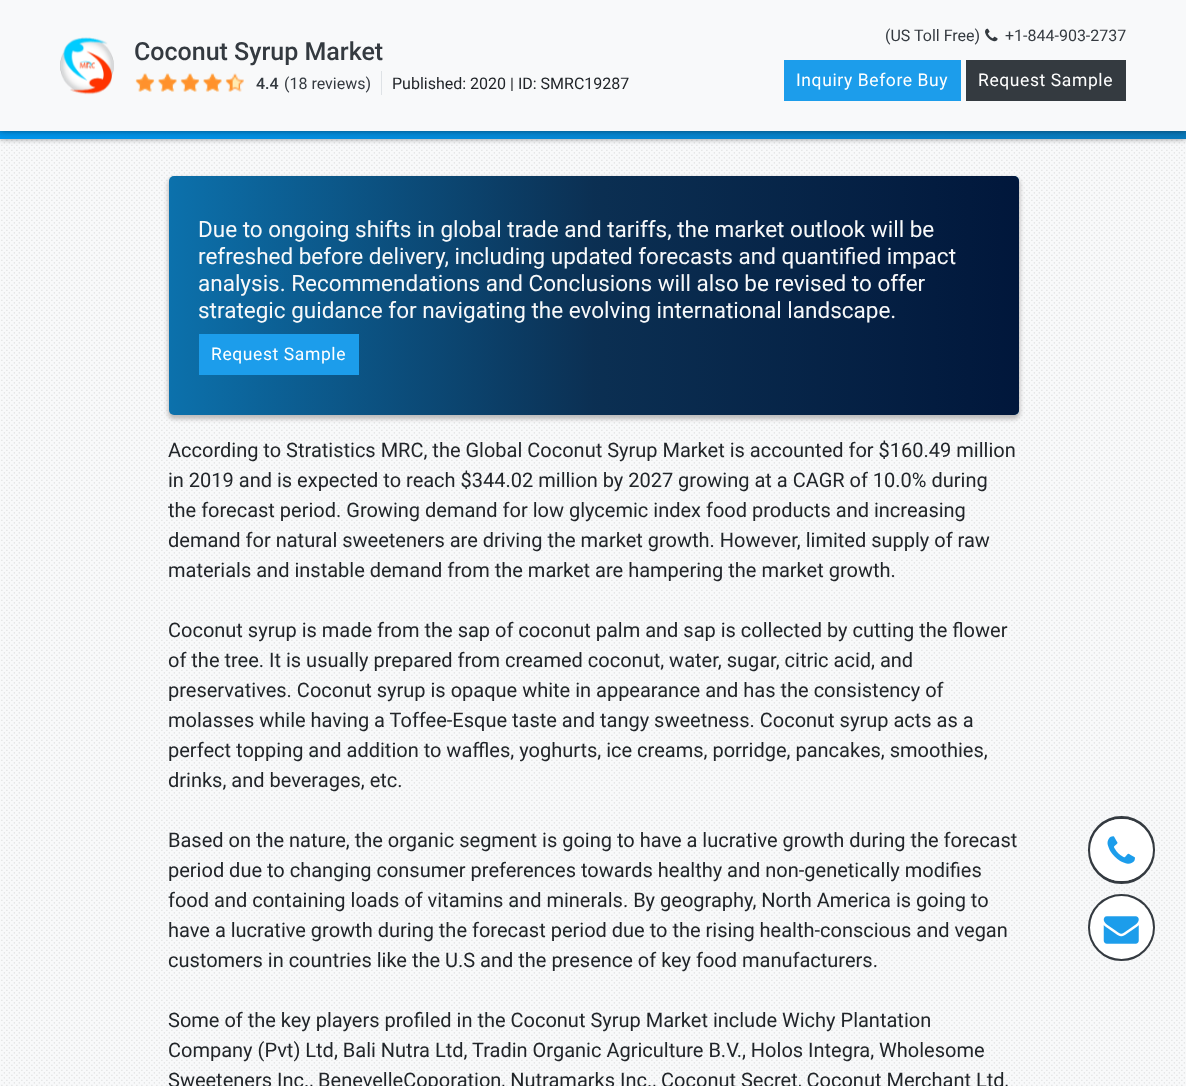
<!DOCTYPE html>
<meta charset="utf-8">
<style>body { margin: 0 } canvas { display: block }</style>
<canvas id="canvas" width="1186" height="1086"></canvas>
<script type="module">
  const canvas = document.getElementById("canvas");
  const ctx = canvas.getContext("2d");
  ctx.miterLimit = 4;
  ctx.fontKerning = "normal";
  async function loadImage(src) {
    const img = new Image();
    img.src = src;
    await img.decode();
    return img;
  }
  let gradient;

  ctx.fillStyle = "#f8f9fa";
  ctx.fillRect(0, 0, 1186, 1086);
  ctx.drawImage(await loadImage("img1.png"), 1, 139, 1184, 947);
  ctx.fillStyle = "rgba(0, 0, 0, 0.58)";
  ctx.filter = "blur(3px)";
  ctx.beginPath();
  ctx.rect(0, -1, 1186, 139);
  ctx.fill();
  ctx.filter = "none";
  gradient = ctx.createLinearGradient(-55, 39, -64, 243);
  gradient.addColorStop(0, "#116090");
  gradient.addColorStop(0.5, "#0098f0");
  gradient.addColorStop(1, "#116090");
  ctx.fillStyle = gradient;
  ctx.fillRect(0, 131, 1186, 8);
  ctx.fillStyle = "rgba(0, 0, 0, 0.58)";
  ctx.filter = "blur(3px)";
  ctx.beginPath();
  ctx.rect(0, -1, 1186, 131);
  ctx.fill();
  ctx.filter = "none";
  ctx.fillStyle = "#f8f9fa";
  ctx.fillRect(0, 0, 1186, 131);
  ctx.drawImage(await loadImage("img2.png"), 60, 37, 54, 58);
  ctx.font = "500 25px Roboto";
  ctx.fillStyle = "#343a40";
  ctx.fillText("Coconut Syrup Market", 134, 60);
  ctx.fillStyle = "#dee2e6";
  ctx.fillRect(381, 71, 1, 24);
  ctx.drawImage(await loadImage("img3.png"), 136, 73, 108, 19);
  ctx.drawImage(await loadImage("img4.png"), 135, 73, 98, 19);
  ctx.font = "500 16px Roboto";
  ctx.fillStyle = "#343a40";
  ctx.fillText("4.4", 256, 89);
  ctx.font = "16px Roboto";
  ctx.fillText("(18 reviews)", 284, 89);
  ctx.fillStyle = "#212529";
  ctx.fillText("Published: 2020 | ID: SMRC19287", 392, 89);
  ctx.fillStyle = "#343a40";
  ctx.fillText("(US Toll Free)", 885, 41);
  ctx.drawImage(await loadImage("img5.png"), 985, 28, 13, 14);
  ctx.fillText("+1-844-903-2737", 1005, 41);
  ctx.strokeStyle = "#1c9deb";
  ctx.lineWidth = 3;
  ctx.strokeRect(785.5, 61.5, 174, 38);
  ctx.save();
  ctx.beginPath();
  ctx.rect(786, 63, 173, 36);
  ctx.clip();
  ctx.fillStyle = "#1c9deb";
  ctx.beginPath();
  ctx.moveTo(682, 62);
  ctx.lineTo(958, 62);
  ctx.lineTo(1002, 99);
  ctx.lineTo(725, 99);
  ctx.closePath();
  ctx.fill();
  ctx.restore();
  ctx.letterSpacing = "0.6px";
  ctx.font = "17.5px Roboto";
  ctx.fillStyle = "#ffffff";
  ctx.fillText("Inquiry Before Buy", 796, 86);
  ctx.fillStyle = "#343a40";
  ctx.fillRect(966, 60, 160, 41);
  ctx.fillStyle = "#ffffff";
  ctx.fillText("Request Sample", 978, 86);
  ctx.fillStyle = "#bdbbbb";
  ctx.filter = "blur(2px)";
  ctx.beginPath();
  ctx.roundRect(168, 178, 852, 241, 6);
  ctx.fill();
  ctx.filter = "none";
  ctx.fillStyle = "#0c71ac";
  ctx.beginPath();
  ctx.roundRect(169, 176, 850, 239, 5);
  ctx.fill();
  gradient = ctx.createLinearGradient(1019, 296, 169, 296);
  gradient.addColorStop(0, "rgba(0, 18, 53, 0.95)");
  gradient.addColorStop(0.5, "rgba(11, 33, 63, 0.82)");
  gradient.addColorStop(1, "rgba(11, 33, 63, 0)");
  ctx.fillStyle = gradient;
  ctx.beginPath();
  ctx.roundRect(169, 176, 850, 239, 5);
  ctx.fill();
  ctx.letterSpacing = "0px";
  ctx.font = "22.5px Roboto";
  ctx.fillStyle = "#f8f9fa";
  ctx.fillText("Due to ongoing shifts in global trade and tariffs, the market outlook will be", 198, 237);
  ctx.fillText("refreshed before delivery, including updated forecasts and quantified impact", 198, 264);
  ctx.fillText("analysis. Recommendations and Conclusions will also be revised to offer", 198, 291);
  ctx.fillText("strategic guidance for navigating the evolving international landscape.", 198, 318);
  ctx.strokeRect(200.5, 335.5, 157, 38);
  ctx.save();
  ctx.beginPath();
  ctx.rect(201, 336, 155, 37);
  ctx.clip();
  ctx.fillStyle = "#1c9deb";
  ctx.beginPath();
  ctx.moveTo(169, 373);
  ctx.lineTo(169, 337);
  ctx.lineTo(356, 337);
  ctx.lineTo(399, 373);
  ctx.closePath();
  ctx.fill();
  ctx.restore();
  ctx.letterSpacing = "0.6px";
  ctx.font = "17.5px Roboto";
  ctx.fillStyle = "#ffffff";
  ctx.fillText("Request Sample", 211, 360);
  ctx.letterSpacing = "0px";
  ctx.font = "20px Roboto";
  ctx.fillStyle = "#212529";
  ctx.fillText("According to Stratistics MRC, the Global Coconut Syrup Market is accounted for $160.49 million", 168, 457);
  ctx.fillText("in 2019 and is expected to reach $344.02 million by 2027 growing at a CAGR of 10.0% during", 168, 487);
  ctx.fillText("the forecast period. Growing demand for low glycemic index food products and increasing", 168, 517);
  ctx.fillText("demand for natural sweeteners are driving the market growth. However, limited supply of raw", 168, 547);
  ctx.fillText("materials and instable demand from the market are hampering the market growth.", 168, 577);
  ctx.fillText("Coconut syrup is made from the sap of coconut palm and sap is collected by cutting the flower", 168, 637);
  ctx.fillText("of the tree. It is usually prepared from creamed coconut, water, sugar, citric acid, and", 168, 667);
  ctx.fillText("preservatives. Coconut syrup is opaque white in appearance and has the consistency of", 168, 697);
  ctx.fillText("molasses while having a Toffee-Esque taste and tangy sweetness. Coconut syrup acts as a", 168, 727);
  ctx.fillText("perfect topping and addition to waffles, yoghurts, ice creams, porridge, pancakes, smoothies,", 168, 757);
  ctx.fillText("drinks, and beverages, etc.", 168, 787);
  ctx.fillText("Based on the nature, the organic segment is going to have a lucrative growth during the forecast", 168, 847);
  ctx.fillText("period due to changing consumer preferences towards healthy and non-genetically modifies", 168, 877);
  ctx.fillText("food and containing loads of vitamins and minerals. By geography, North America is going to", 168, 907);
  ctx.fillText("have a lucrative growth during the forecast period due to the rising health-conscious and vegan", 168, 937);
  ctx.fillText("customers in countries like the U.S and the presence of key food manufacturers.", 168, 967);
  ctx.fillText("Some of the key players profiled in the Coconut Syrup Market include Wichy Plantation", 168, 1027);
  ctx.fillText("Company (Pvt) Ltd, Bali Nutra Ltd, Tradin Organic Agriculture B.V., Holos Integra, Wholesome", 168, 1057);
  ctx.fillText("Sweeteners Inc., BenevelleCoporation, Nutramarks Inc., Coconut Secret, Coconut Merchant Ltd,", 168, 1087);
  ctx.beginPath();
  ctx.roundRect(1089.5, 817.5, 64, 65, 32);
  ctx.strokeStyle = "#343a40";
  ctx.stroke();
  ctx.fillStyle = "#ffffff";
  ctx.beginPath();
  ctx.roundRect(1090, 819, 63, 62, 31);
  ctx.fill();
  ctx.drawImage(await loadImage("img6.png"), 1107, 836, 28, 28);
  ctx.beginPath();
  ctx.arc(1121.5, 927.5, 32, 0, Math.PI * 2);
  ctx.stroke();
  ctx.beginPath();
  ctx.arc(1121.5, 927.5, 31.5, 0, Math.PI * 2);
  ctx.fill();
  ctx.drawImage(await loadImage("img7.png"), 1103, 916, 36, 28);
</script>
